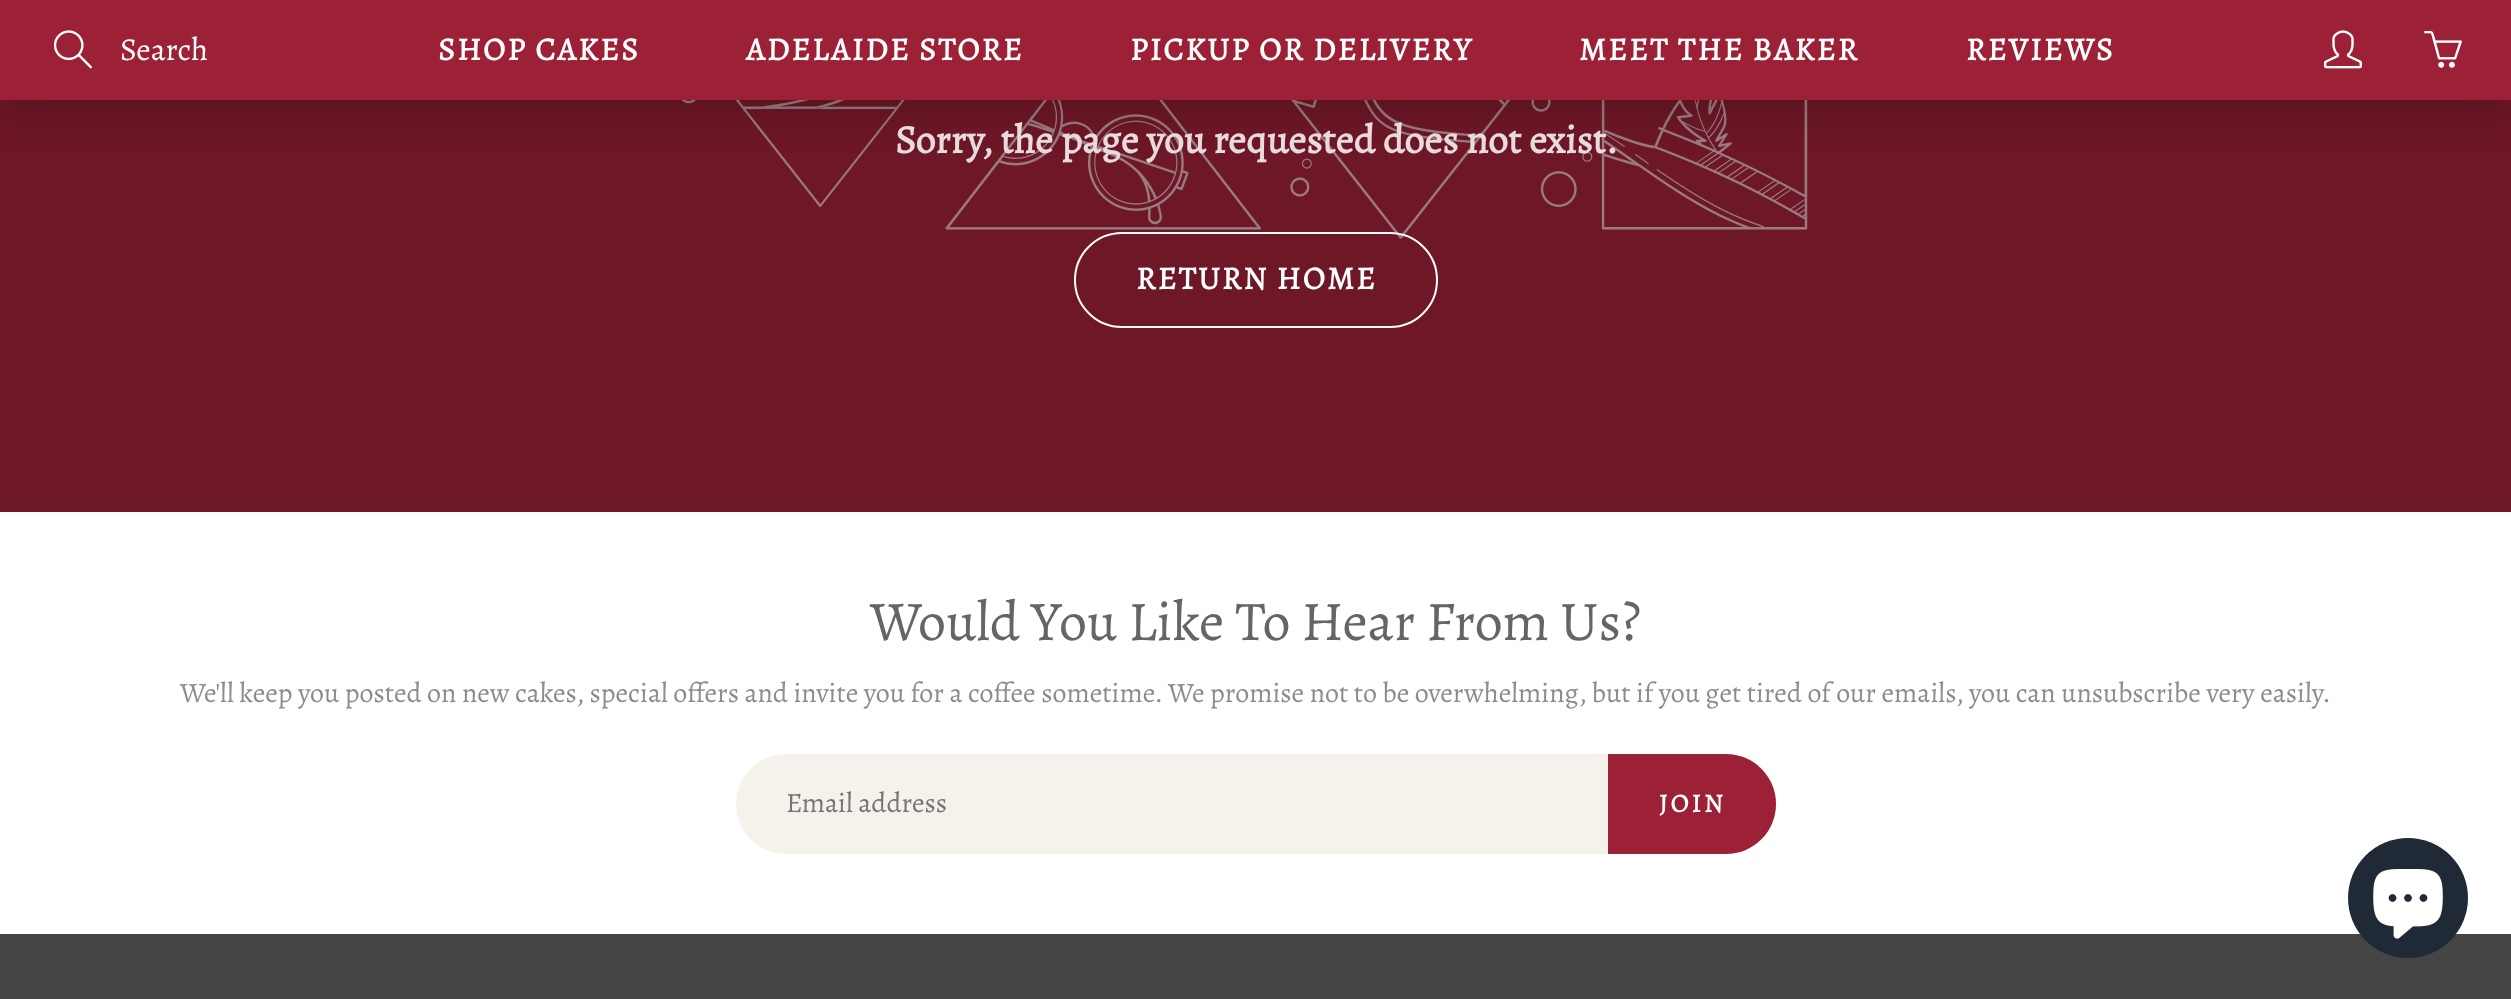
<!DOCTYPE html>
<meta charset="utf-8">
<style>body { margin: 0 } canvas { display: block }</style>
<canvas id="canvas" width="2511" height="999"></canvas>
<script type="module">
  const canvas = document.getElementById("canvas");
  const ctx = canvas.getContext("2d");
  ctx.miterLimit = 4;
  ctx.fontKerning = "normal";
  async function loadImage(src) {
    const img = new Image();
    img.src = src;
    await img.decode();
    return img;
  }

  ctx.fillStyle = "#ffffff";
  ctx.fillRect(0, 0, 2511, 999);
  ctx.fillStyle = "#6e1726";
  ctx.fillRect(0, 100, 2511, 412);
  ctx.drawImage(await loadImage("img4.png"), 681, 100, 1127, 139);
  ctx.fillStyle = "rgba(0, 0, 0, 0.2)";
  ctx.filter = "blur(20px)";
  ctx.beginPath();
  ctx.rect(0, 10, 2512, 100);
  ctx.fill();
  ctx.filter = "none";
  ctx.fillStyle = "#9d2136";
  ctx.fillRect(0, 0, 2511, 100);
  ctx.drawImage(await loadImage("img1.png"), 53, 30, 39, 39);
  ctx.font = "32px Alegreya";
  ctx.fillStyle = "#ffffff";
  ctx.fillText("Search", 120, 60);
  ctx.letterSpacing = "2px";
  ctx.font = "bold 32px Alegreya";
  ctx.fillText("SHOP CAKES", 438, 60);
  ctx.fillText("ADELAIDE STORE", 746, 60);
  ctx.fillText("PICKUP OR DELIVERY", 1130, 60);
  ctx.fillText("MEET THE BAKER", 1579, 60);
  ctx.fillText("REVIEWS", 1966, 60);
  ctx.drawImage(await loadImage("img2.png"), 2324, 30, 38, 39);
  ctx.drawImage(await loadImage("img3.png"), 2424, 31, 38, 37);
  ctx.letterSpacing = "0px";
  ctx.font = "bold 40px Alegreya";
  ctx.fillStyle = "#e8dbdd";
  ctx.fillText("Sorry, the page you requested does not exist.", 895, 153);
  ctx.beginPath();
  ctx.roundRect(1075, 233, 362, 94, 47);
  ctx.strokeStyle = "#ffffff";
  ctx.lineWidth = 2;
  ctx.stroke();
  ctx.letterSpacing = "2px";
  ctx.font = "bold 32px Alegreya";
  ctx.fillStyle = "#ffffff";
  ctx.fillText("RETURN HOME", 1136, 289);
  ctx.letterSpacing = "0px";
  ctx.font = "56px Alegreya";
  ctx.fillStyle = "#666565";
  ctx.fillText("Would You Like To Hear From Us?", 870, 640);
  ctx.font = "28px Alegreya";
  ctx.fillStyle = "#8c8c8c";
  ctx.fillText("We'll keep you posted on new cakes, special offers and invite you for a coffee sometime. We promise not to be overwhelming, but if you get tired of our emails, you can unsubscribe very easily.", 180, 702);
  ctx.fillStyle = "#f5f2eb";
  ctx.beginPath();
  ctx.roundRect(736, 754, 1040, 100, 50);
  ctx.fill();
  ctx.fillStyle = "#757575";
  ctx.fillText("Email address", 786, 812);
  ctx.fillStyle = "#9d2136";
  ctx.beginPath();
  ctx.roundRect(1608, 754, 168, 100, [0, 50, 50, 0]);
  ctx.fill();
  ctx.letterSpacing = "3px";
  ctx.font = "bold 26px Alegreya";
  ctx.fillStyle = "#ffffff";
  ctx.fillText("JOIN", 1659, 812);
  ctx.fillStyle = "#454545";
  ctx.fillRect(0, 934, 2511, 65);
  ctx.fillStyle = "#202a36";
  ctx.beginPath();
  ctx.arc(2408, 898, 60, 0, Math.PI * 2);
  ctx.fill();
  ctx.drawImage(await loadImage("img5.png"), 2373, 869, 70, 70);
</script>
